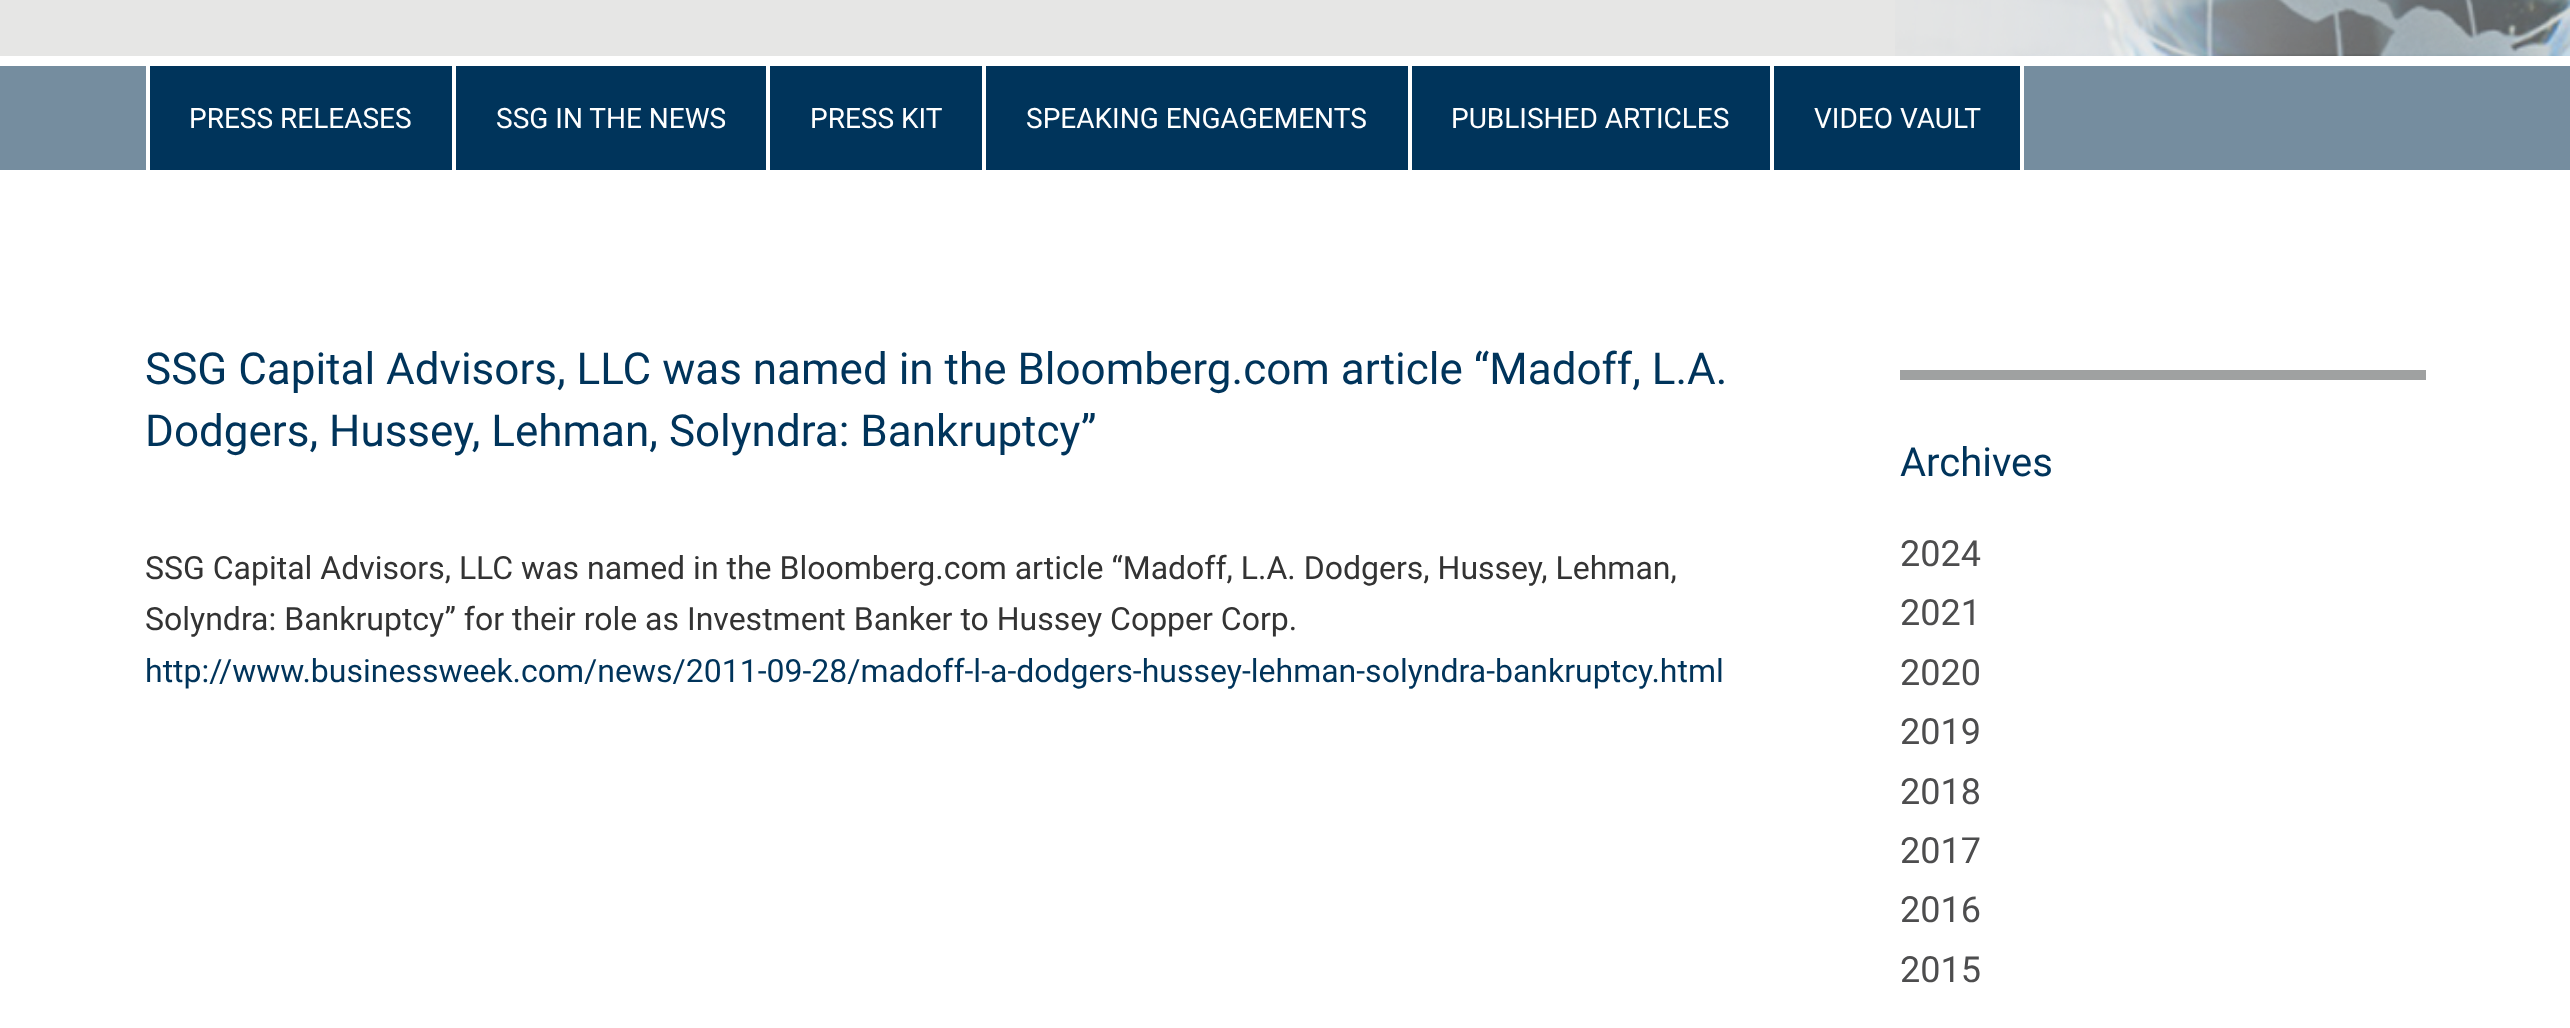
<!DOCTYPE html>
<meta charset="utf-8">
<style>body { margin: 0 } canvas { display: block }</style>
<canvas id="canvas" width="2570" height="1028"></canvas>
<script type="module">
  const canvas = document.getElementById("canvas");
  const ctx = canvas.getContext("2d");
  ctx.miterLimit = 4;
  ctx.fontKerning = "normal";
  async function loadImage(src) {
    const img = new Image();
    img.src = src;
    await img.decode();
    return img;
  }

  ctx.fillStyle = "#ffffff";
  ctx.fillRect(0, 0, 2570, 1028);
  ctx.fillStyle = "#e6e6e5";
  ctx.fillRect(0, 0, 2570, 56);
  ctx.drawImage(await loadImage("img1.png"), 1895, 0, 675, 56);
  ctx.fillStyle = "#758d9f";
  ctx.fillRect(0, 66, 2570, 104);
  ctx.fillStyle = "#ffffff";
  ctx.fillRect(452, 66, 4, 104);
  ctx.fillRect(146, 66, 4, 104);
  ctx.fillStyle = "#00345b";
  ctx.fillRect(150, 66, 302, 104);
  ctx.font = "28px Roboto";
  ctx.fillStyle = "#ffffff";
  ctx.fillText("PRESS RELEASES", 189, 128);
  ctx.fillRect(766, 66, 4, 104);
  ctx.fillStyle = "#00345b";
  ctx.fillRect(456, 66, 310, 104);
  ctx.fillStyle = "#ffffff";
  ctx.fillText("SSG IN THE NEWS", 496, 128);
  ctx.fillRect(982, 66, 4, 104);
  ctx.fillStyle = "#00345b";
  ctx.fillRect(770, 66, 212, 104);
  ctx.fillStyle = "#ffffff";
  ctx.fillText("PRESS KIT", 810, 128);
  ctx.fillRect(1408, 66, 4, 104);
  ctx.fillStyle = "#00345b";
  ctx.fillRect(986, 66, 422, 104);
  ctx.fillStyle = "#ffffff";
  ctx.fillText("SPEAKING ENGAGEMENTS", 1026, 128);
  ctx.fillRect(1770, 66, 4, 104);
  ctx.fillStyle = "#00345b";
  ctx.fillRect(1412, 66, 358, 104);
  ctx.fillStyle = "#ffffff";
  ctx.fillText("PUBLISHED ARTICLES", 1451, 128);
  ctx.fillRect(2020, 66, 4, 104);
  ctx.fillStyle = "#00345b";
  ctx.fillRect(1774, 66, 246, 104);
  ctx.fillStyle = "#ffffff";
  ctx.fillText("VIDEO VAULT", 1814, 128);
  ctx.font = "44px Roboto";
  ctx.fillStyle = "#00345b";
  ctx.fillText("SSG Capital Advisors, LLC was named in the Bloomberg.com article “Madoff, L.A.", 145, 384);
  ctx.fillText("Dodgers, Hussey, Lehman, Solyndra: Bankruptcy”", 145, 446);
  ctx.font = "32px Roboto";
  ctx.fillStyle = "#333333";
  ctx.fillText("SSG Capital Advisors, LLC was named in the Bloomberg.com article “Madoff, L.A. Dodgers, Hussey, Lehman,", 145, 579);
  ctx.fillText("Solyndra: Bankruptcy” for their role as Investment Banker to Hussey Copper Corp.", 145, 630);
  ctx.fillStyle = "#00345b";
  ctx.fillText("http://www.businessweek.com/news/2011-09-28/madoff-l-a-dodgers-hussey-lehman-solyndra-bankruptcy.html", 145, 682);
  ctx.fillStyle = "#9fa1a1";
  ctx.fillRect(1900, 370, 526, 10);
  ctx.font = "40px Roboto";
  ctx.fillStyle = "#00345b";
  ctx.fillText("Archives", 1900, 476);
  ctx.font = "36px Roboto";
  ctx.fillStyle = "#4d4d4e";
  ctx.fillText("2024", 1900, 566);
  ctx.fillText("2021", 1900, 625);
  ctx.fillText("2020", 1900, 685);
  ctx.fillText("2019", 1900, 744);
  ctx.fillText("2018", 1900, 804);
  ctx.fillText("2017", 1900, 863);
  ctx.fillText("2016", 1900, 922);
  ctx.fillText("2015", 1900, 982);
</script>
